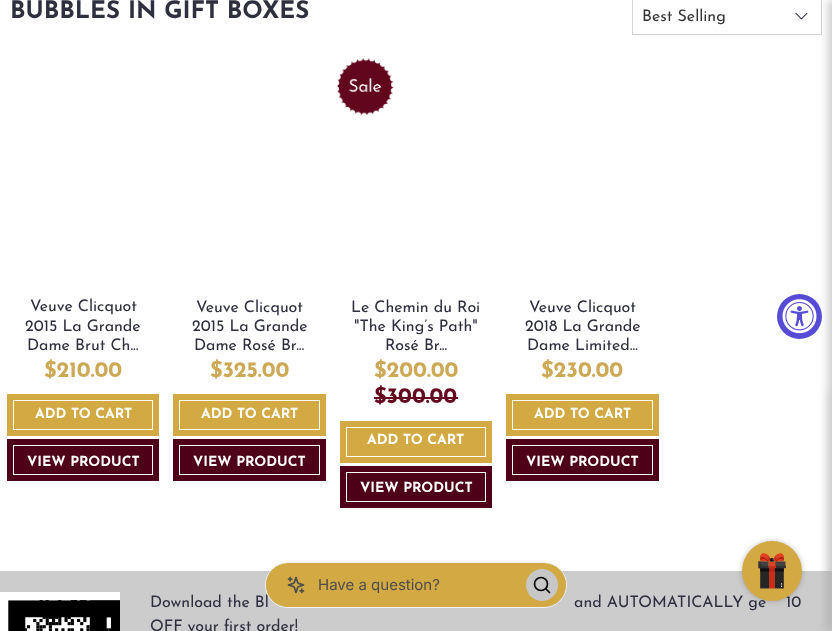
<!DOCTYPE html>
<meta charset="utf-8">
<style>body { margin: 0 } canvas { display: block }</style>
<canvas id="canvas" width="832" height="631"></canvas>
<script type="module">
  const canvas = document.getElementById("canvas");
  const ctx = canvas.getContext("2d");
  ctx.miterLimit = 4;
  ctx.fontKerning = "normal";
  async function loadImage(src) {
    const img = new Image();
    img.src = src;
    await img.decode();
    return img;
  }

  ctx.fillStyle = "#ffffff";
  ctx.fillRect(0, 0, 832, 631);
  ctx.font = "bold 24px Josefin Sans";
  ctx.fillStyle = "#2e2f3f";
  ctx.fillText("BUBBLES IN GIFT BOXES", 10, 18);
  ctx.strokeStyle = "#d3d3d3";
  ctx.strokeRect(632.5, -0.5, 189, 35);
  ctx.font = "16px Josefin Sans";
  ctx.fillStyle = "#363636";
  ctx.fillText("Best Selling", 642, 21);
  ctx.drawImage(await loadImage("img1.png"), 795, 12, 13, 8);
  ctx.fillStyle = "#2e2f3f";
  ctx.fillText("Veuve Clicquot", 30, 311);
  ctx.fillText("2015 La Grande", 25, 331);
  ctx.fillText("Dame Brut Ch...", 27, 350);
  ctx.font = "bold 22px Josefin Sans";
  ctx.fillStyle = "#cda955";
  ctx.fillText("$210.00", 44, 377);
  ctx.fillStyle = "#d3a943";
  ctx.fillRect(14, 401, 138, 28);
  ctx.strokeStyle = "#d3a943";
  ctx.lineWidth = 6;
  ctx.strokeRect(10, 397, 146, 36);
  ctx.font = "bold 14px Josefin Sans";
  ctx.fillStyle = "#ffffff";
  ctx.fillText("ADD TO CART", 35, 418);
  ctx.fillStyle = "#4d0017";
  ctx.fillRect(14, 446, 138, 28);
  ctx.strokeStyle = "#4d0017";
  ctx.strokeRect(10, 442, 146, 36);
  ctx.fillStyle = "#ffffff";
  ctx.fillText("VIEW PRODUCT", 27, 466);
  ctx.font = "16px Josefin Sans";
  ctx.fillStyle = "#2e2f3f";
  ctx.fillText("Veuve Clicquot", 196, 312);
  ctx.fillText("2015 La Grande", 192, 331);
  ctx.fillText("Dame Rosé Br...", 194, 350);
  ctx.font = "bold 22px Josefin Sans";
  ctx.fillStyle = "#cda955";
  ctx.fillText("$325.00", 210, 377);
  ctx.fillStyle = "#d3a943";
  ctx.fillRect(180, 401, 139, 28);
  ctx.strokeStyle = "#d3a943";
  ctx.strokeRect(176, 397, 147, 36);
  ctx.font = "bold 14px Josefin Sans";
  ctx.fillStyle = "#ffffff";
  ctx.fillText("ADD TO CART", 201, 418);
  ctx.fillStyle = "#4d0017";
  ctx.fillRect(180, 446, 139, 28);
  ctx.strokeStyle = "#4d0017";
  ctx.strokeRect(176, 442, 147, 36);
  ctx.fillStyle = "#ffffff";
  ctx.fillText("VIEW PRODUCT", 193, 466);
  ctx.drawImage(await loadImage("img2.png"), 337, 58, 57, 58);
  ctx.font = "16px Josefin Sans";
  ctx.fillStyle = "#2e2f3f";
  ctx.fillText("Le Chemin du Roi", 351, 312);
  ctx.fillText("\"The King’s Path\"", 354, 331);
  ctx.fillText("Rosé Br...", 385, 350);
  ctx.font = "bold 22px Josefin Sans";
  ctx.fillStyle = "#cda955";
  ctx.fillText("$200.00", 374, 377);
  ctx.fillStyle = "#650920";
  ctx.fillText("$300.00", 374, 403);
  ctx.fillRect(374, 397, 84, 2);
  ctx.fillStyle = "#d3a943";
  ctx.fillRect(347, 428, 138, 28);
  ctx.strokeStyle = "#d3a943";
  ctx.strokeRect(343, 424, 146, 36);
  ctx.font = "bold 14px Josefin Sans";
  ctx.fillStyle = "#ffffff";
  ctx.fillText("ADD TO CART", 367, 444);
  ctx.fillStyle = "#4d0017";
  ctx.fillRect(347, 473, 138, 28);
  ctx.strokeStyle = "#4d0017";
  ctx.strokeRect(343, 469, 146, 36);
  ctx.fillStyle = "#ffffff";
  ctx.fillText("VIEW PRODUCT", 360, 492);
  ctx.font = "16px Josefin Sans";
  ctx.fillStyle = "#2e2f3f";
  ctx.fillText("Veuve Clicquot", 529, 312);
  ctx.fillText("2018 La Grande", 525, 331);
  ctx.fillText("Dame Limited...", 527, 350);
  ctx.font = "bold 22px Josefin Sans";
  ctx.fillStyle = "#cda955";
  ctx.fillText("$230.00", 541, 377);
  ctx.fillStyle = "#d3a943";
  ctx.fillRect(513, 401, 139, 28);
  ctx.strokeStyle = "#d3a943";
  ctx.strokeRect(509, 397, 147, 36);
  ctx.font = "bold 14px Josefin Sans";
  ctx.fillStyle = "#ffffff";
  ctx.fillText("ADD TO CART", 534, 418);
  ctx.fillStyle = "#4d0017";
  ctx.fillRect(513, 446, 139, 28);
  ctx.strokeStyle = "#4d0017";
  ctx.strokeRect(509, 442, 147, 36);
  ctx.fillStyle = "#ffffff";
  ctx.fillText("VIEW PRODUCT", 526, 466);
  ctx.fillStyle = "#cccccc";
  ctx.fillRect(0, 571, 832, 60);
  ctx.fillStyle = "rgba(0, 0, 0, 0.2)";
  ctx.filter = "blur(5px)";
  ctx.beginPath();
  ctx.rect(828, 0, 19, 631);
  ctx.fill();
  ctx.filter = "none";
  ctx.fillStyle = "#cccccc";
  ctx.filter = "blur(5.5px)";
  ctx.beginPath();
  ctx.rect(832, 391, 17, 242);
  ctx.fill();
  ctx.filter = "none";
  ctx.fillStyle = "#574cd5";
  ctx.beginPath();
  ctx.arc(799.5, 316.5, 22.5, 0, Math.PI * 2);
  ctx.fill();
  ctx.drawImage(await loadImage("img3.png"), 782, 299, 35, 35);
  ctx.font = "16px Josefin Sans";
  ctx.fillStyle = "#2e2f3f";
  ctx.fillText("Download the Bl", 150, 607);
  ctx.beginPath();
  ctx.roundRect(265.5, 562.5, 301, 45, 22.5);
  ctx.strokeStyle = "#f2f2f2";
  ctx.lineWidth = 1;
  ctx.stroke();
  ctx.fillStyle = "#d3a943";
  ctx.beginPath();
  ctx.roundRect(266, 563, 300, 44, 22);
  ctx.fill();
  ctx.drawImage(await loadImage("img4.png"), 287, 576, 18, 18);
  ctx.font = "15px Inter";
  ctx.fillStyle = "#4d4d4d";
  ctx.fillText("Have a question?", 318, 590);
  ctx.fillStyle = "#c7c7c7";
  ctx.beginPath();
  ctx.arc(542, 585, 16, 0, Math.PI * 2);
  ctx.fill();
  ctx.beginPath();
  ctx.arc(541, 584, 6.5, 0, Math.PI * 2);
  ctx.strokeStyle = "#000000";
  ctx.lineWidth = 1.7;
  ctx.stroke();
  ctx.beginPath();
  ctx.moveTo(549.5, 592.5);
  ctx.lineTo(546, 589);
  ctx.lineCap = "round";
  ctx.lineJoin = "round";
  ctx.stroke();
  ctx.fillStyle = "#000000";
  ctx.filter = "blur(5px)";
  ctx.beginPath();
  ctx.roundRect(747, 546, 50, 50, 25);
  ctx.fill();
  ctx.filter = "none";
  ctx.font = "16px Josefin Sans";
  ctx.fillStyle = "#2e2f3f";
  ctx.fillText("and AUTOMATICALLY ge", 574, 607);
  ctx.fillText("10", 786, 607);
  ctx.fillStyle = "#d3a943";
  ctx.beginPath();
  ctx.arc(772, 571, 30, 0, Math.PI * 2);
  ctx.fill();
  ctx.drawImage(await loadImage("img5.png"), 758, 553, 28, 36);
  ctx.drawImage(await loadImage("img6.png"), 0, 592, 120, 39);
  ctx.fillStyle = "#2e2f3f";
  ctx.fillText("OFF your first order!", 150, 631);
</script>
